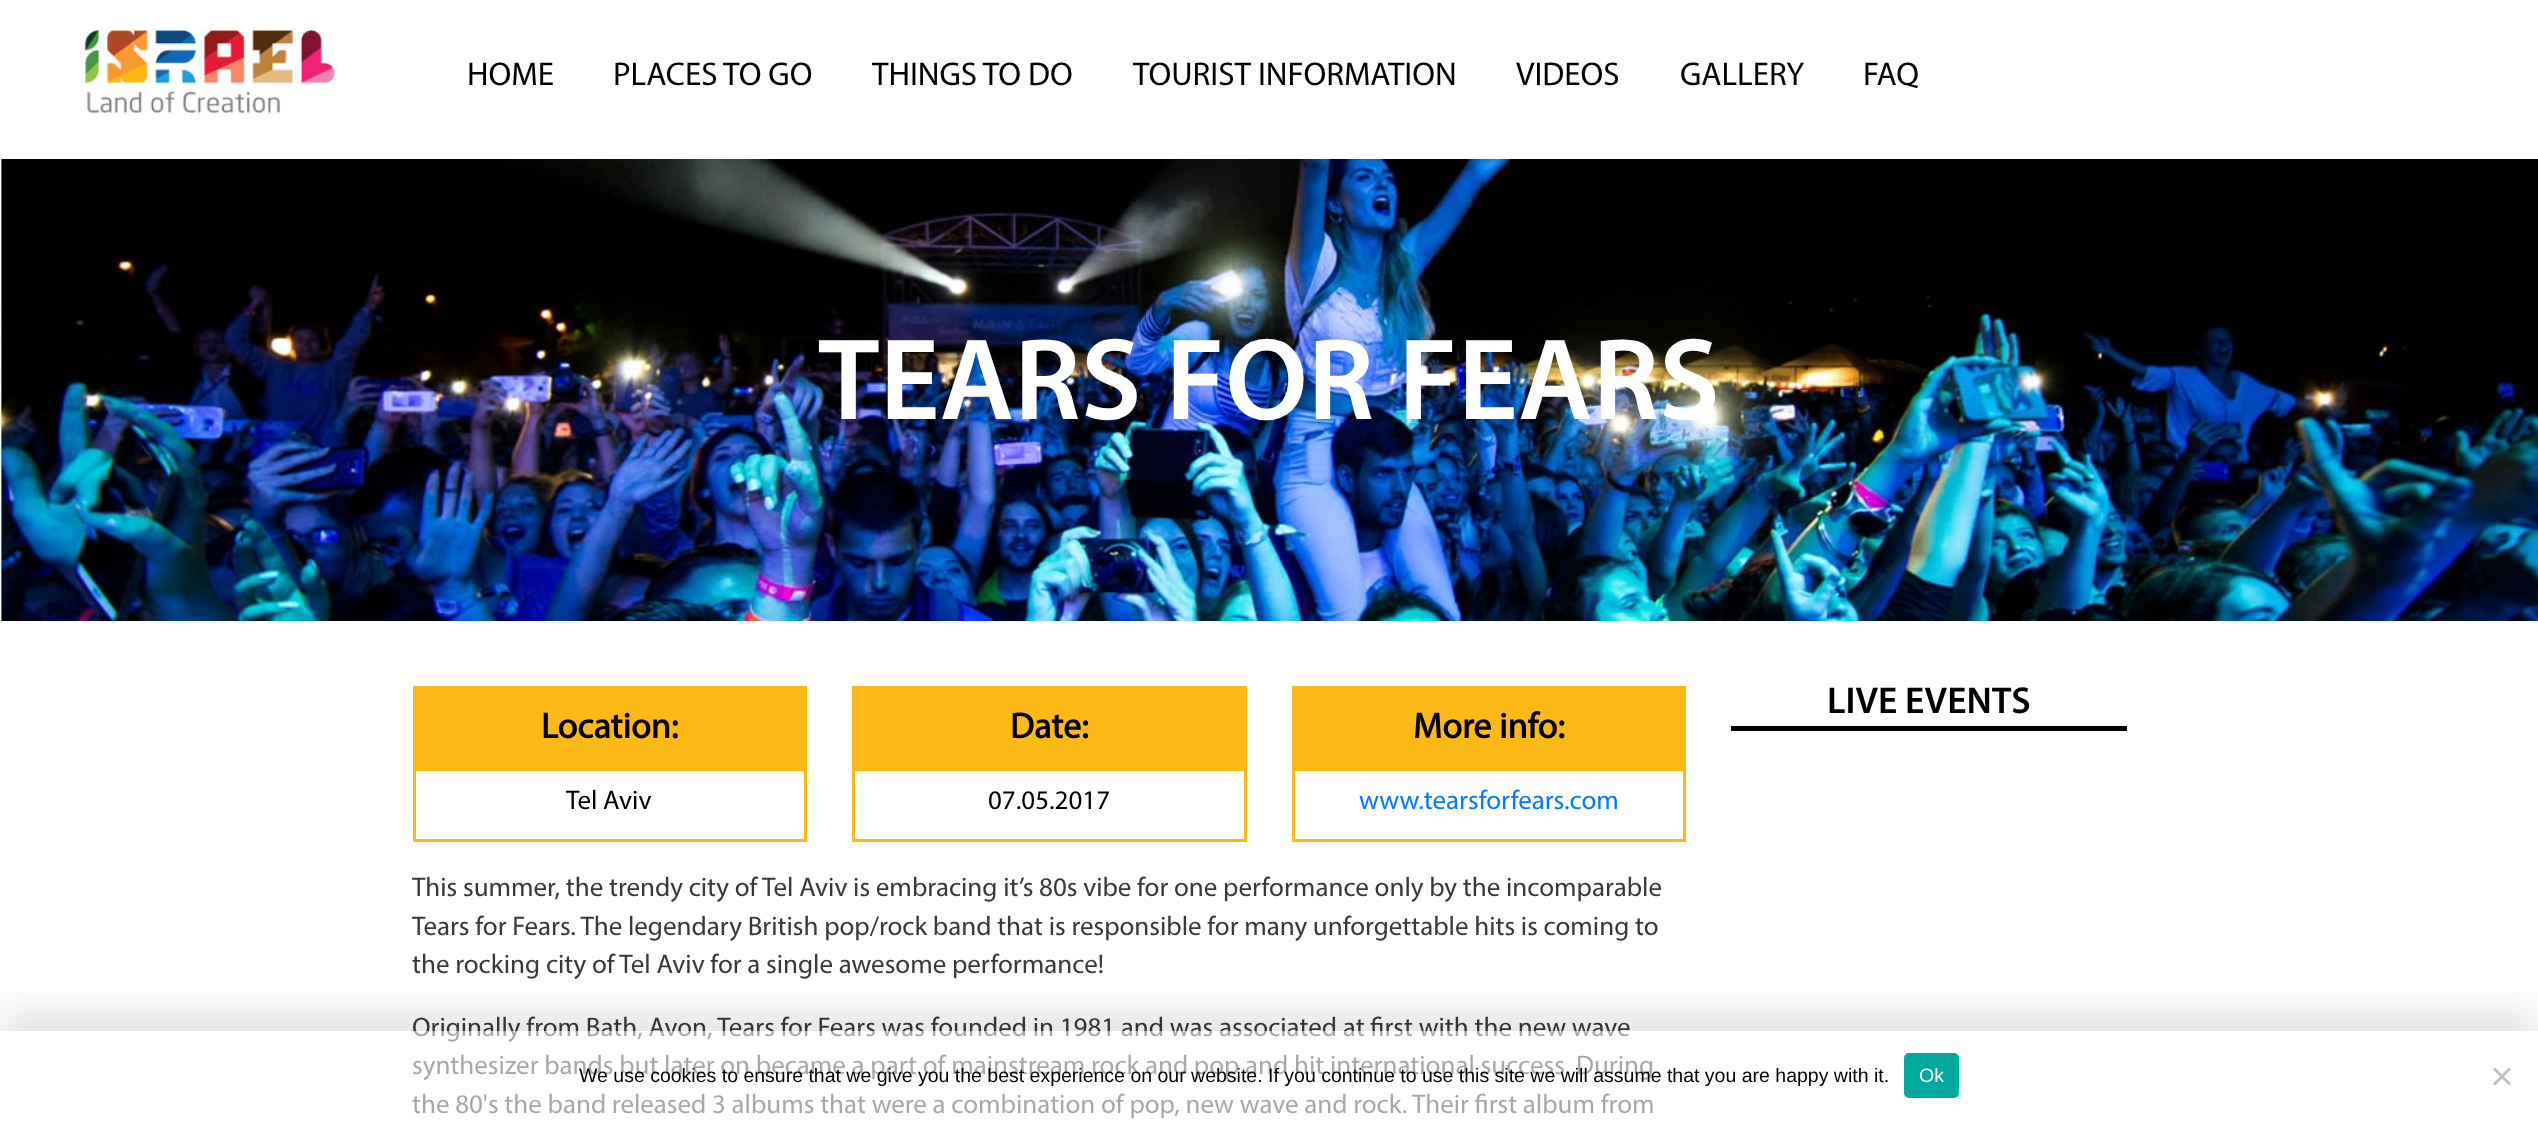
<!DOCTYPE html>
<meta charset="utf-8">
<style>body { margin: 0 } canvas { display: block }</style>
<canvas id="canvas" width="2538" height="1121"></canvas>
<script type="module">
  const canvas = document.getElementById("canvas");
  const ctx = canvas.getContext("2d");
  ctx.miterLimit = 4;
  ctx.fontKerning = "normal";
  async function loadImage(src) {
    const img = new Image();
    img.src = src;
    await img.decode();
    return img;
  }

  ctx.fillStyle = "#ffffff";
  ctx.fillRect(0, 0, 2538, 1121);
  ctx.drawImage(await loadImage("img1.png"), 84, 30, 254, 84);
  ctx.font = "33px Myriad";
  ctx.fillStyle = "#000000";
  ctx.fillText("HOME", 467, 85);
  ctx.fillText("PLACES TO GO", 613, 85);
  ctx.fillText("THINGS TO DO", 872, 85);
  ctx.fillText("TOURIST INFORMATION", 1133, 85);
  ctx.fillText("VIDEOS", 1516, 85);
  ctx.fillText("GALLERY", 1680, 85);
  ctx.fillText("FAQ", 1863, 85);
  ctx.drawImage(await loadImage("img2.png"), 0, 159, 2538, 462);
  ctx.font = "600 117px Myriad";
  ctx.fillStyle = "#ffffff";
  ctx.fillText("TEARS FOR FEARS", 818, 419);
  ctx.fillStyle = "#010000";
  ctx.fillRect(1731, 726, 396, 5);
  ctx.font = "600 37.5px Myriad";
  ctx.fillStyle = "#000000";
  ctx.fillText("LIVE EVENTS", 1827, 713);
  ctx.strokeStyle = "#fdb915";
  ctx.lineWidth = 3;
  ctx.strokeRect(414.5, 687.5, 391, 153);
  ctx.fillStyle = "#fdb915";
  ctx.fillRect(416, 689, 388, 82);
  ctx.font = "bold 36px Myriad";
  ctx.fillStyle = "#000000";
  ctx.fillText("Location:", 541, 738);
  ctx.font = "27px Myriad";
  ctx.fillText("Tel Aviv", 566, 809);
  ctx.strokeRect(853.5, 687.5, 392, 153);
  ctx.fillStyle = "#fdb915";
  ctx.fillRect(855, 689, 389, 82);
  ctx.font = "bold 36px Myriad";
  ctx.fillStyle = "#000000";
  ctx.fillText("Date:", 1010, 738);
  ctx.font = "27px Myriad";
  ctx.fillText("07.05.2017", 988, 809);
  ctx.strokeRect(1293.5, 687.5, 391, 153);
  ctx.fillStyle = "#fdb915";
  ctx.fillRect(1295, 689, 388, 82);
  ctx.font = "bold 36px Myriad";
  ctx.fillStyle = "#000000";
  ctx.fillText("More info:", 1413, 738);
  ctx.font = "27px Myriad";
  ctx.fillStyle = "#007bff";
  ctx.fillText("www.tearsforfears.com", 1359, 809);
  ctx.fillStyle = "#393838";
  ctx.fillText("This summer, the trendy city of Tel Aviv is embracing it’s 80s vibe for one performance only by the incomparable", 412, 896);
  ctx.fillText("Tears for Fears. The legendary British pop/rock band that is responsible for many unforgettable hits is coming to", 412, 935);
  ctx.fillText("the rocking city of Tel Aviv for a single awesome performance!", 412, 973);
  ctx.fillText("Originally from Bath, Avon, Tears for Fears was founded in 1981 and was associated at first with the new wave", 412, 1036);
  ctx.fillText("synthesizer bands but later on became a part of mainstream rock and pop and hit international success. During", 412, 1074);
  ctx.fillText("the 80's the band released 3 albums that were a combination of pop, new wave and rock. Their first album from", 412, 1113);
  ctx.save();
  ctx.beginPath();
  ctx.rect(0, 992, 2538, 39);
  ctx.clip();
  ctx.fillStyle = "rgba(0, 0, 0, 0.1)";
  ctx.filter = "blur(19px)";
  ctx.beginPath();
  ctx.rect(0, 1008, 2538, 92);
  ctx.fill();
  ctx.filter = "none";
  ctx.restore();
  ctx.fillStyle = "rgba(255, 255, 255, 0.56)";
  ctx.fillRect(412, 1031, 1241, 88);
  ctx.font = "19.5px Liberation Sans";
  ctx.fillStyle = "#000000";
  ctx.fillText("We use cookies to ensure that we give you the best experience on our website. If you continue to use this site we will assume that you are happy with it.", 579, 1082);
  ctx.fillStyle = "#00a99d";
  ctx.beginPath();
  ctx.roundRect(1904, 1053, 55, 45, 5);
  ctx.fill();
  ctx.fillStyle = "#ffffff";
  ctx.fillText("Ok", 1919, 1082);
  ctx.fillStyle = "#bfbfbf";
  ctx.beginPath();
  ctx.moveTo(2509, 1067.5);
  ctx.lineTo(2511, 1069.5);
  ctx.lineTo(2495, 1085.5);
  ctx.lineTo(2493, 1083.5);
  ctx.closePath();
  ctx.fill();
  ctx.beginPath();
  ctx.moveTo(2493, 1069.5);
  ctx.lineTo(2495, 1067.5);
  ctx.lineTo(2511, 1083.5);
  ctx.lineTo(2509, 1085.5);
  ctx.closePath();
  ctx.fill();
</script>
